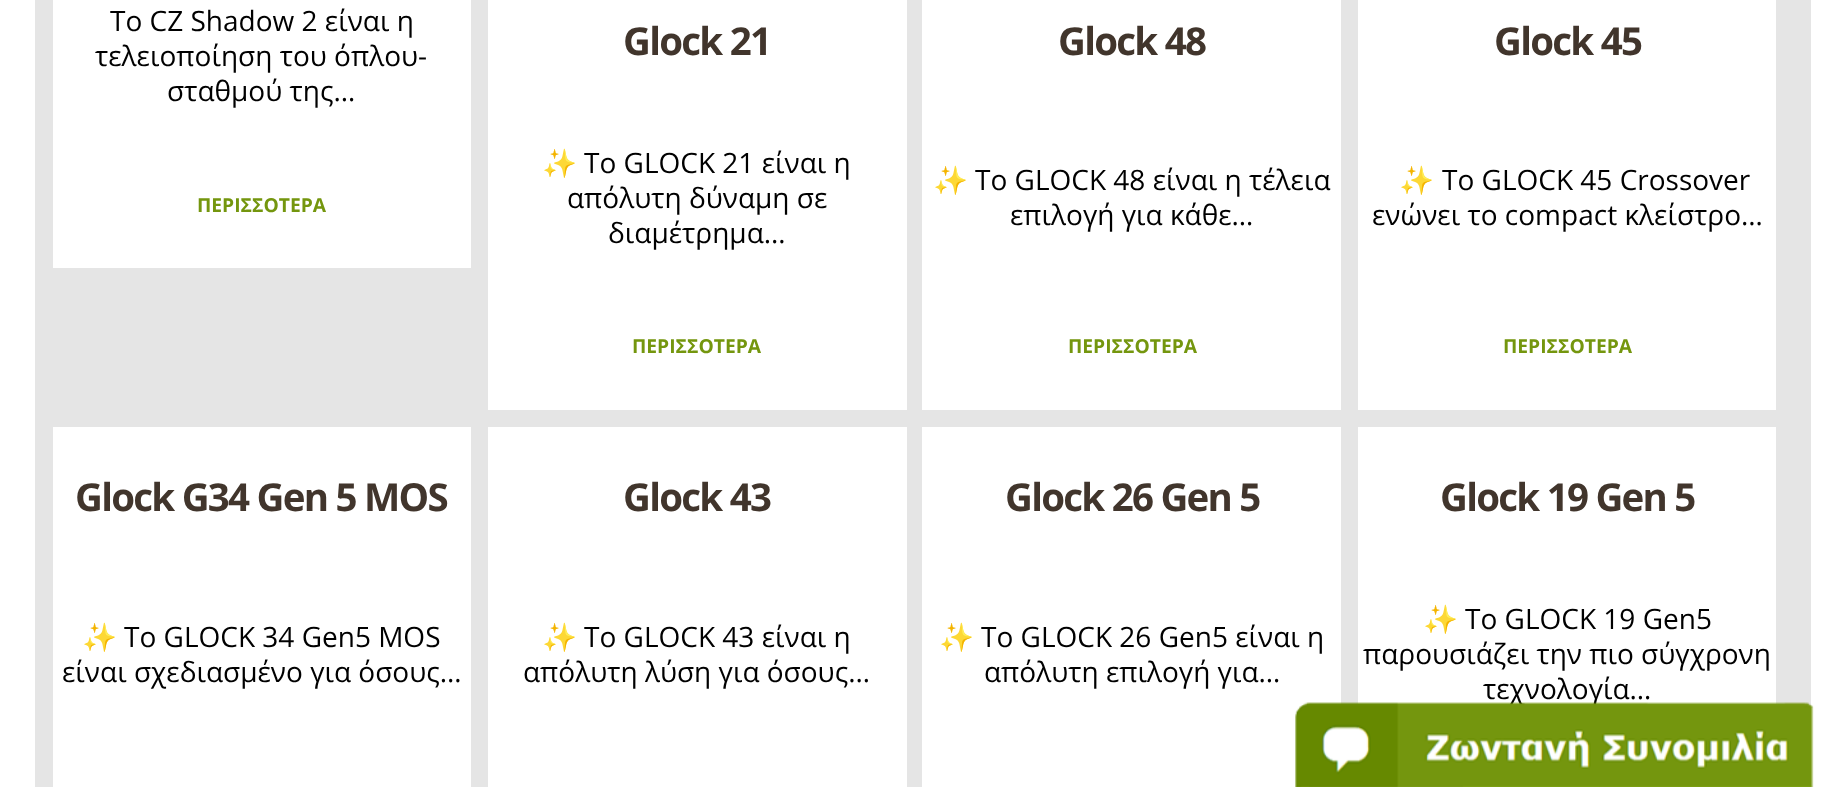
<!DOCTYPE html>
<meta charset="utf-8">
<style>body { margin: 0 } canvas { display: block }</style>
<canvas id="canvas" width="1845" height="787"></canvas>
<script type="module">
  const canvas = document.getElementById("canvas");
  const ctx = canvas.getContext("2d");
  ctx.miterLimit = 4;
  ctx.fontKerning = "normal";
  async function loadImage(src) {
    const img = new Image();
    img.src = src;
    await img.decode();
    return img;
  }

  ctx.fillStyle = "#e5e5e5";
  ctx.fillRect(0, 0, 1845, 787);
  ctx.fillStyle = "#ffffff";
  ctx.fillRect(1811, 0, 34, 787);
  ctx.fillRect(0, 0, 35, 787);
  ctx.fillRect(53, 0, 418, 268);
  ctx.font = "28px Open Sans";
  ctx.fillStyle = "#000000";
  ctx.fillText("Το CZ Shadow 2 είναι η", 110, 31);
  ctx.fillText("τελειοποίηση του όπλου-", 95, 66);
  ctx.fillText("σταθμού της…", 167, 101);
  ctx.font = "bold 19.25px Open Sans";
  ctx.fillStyle = "#74960e";
  ctx.fillText("ΠΕΡΙΣΣΟΤΕΡΑ", 197, 212);
  ctx.fillStyle = "#ffffff";
  ctx.fillRect(488, 0, 419, 410);
  ctx.letterSpacing = "-1.75px";
  ctx.font = "bold 38.5px Open Sans";
  ctx.fillStyle = "#41352c";
  ctx.fillText("Glock 21", 623, 55);
  ctx.letterSpacing = "0px";
  ctx.font = "28px Noto Color Emoji";
  ctx.fillStyle = "#000000";
  ctx.fillText("✨", 542, 173);
  ctx.font = "28px Open Sans";
  ctx.fillText("Το GLOCK 21 είναι η", 584, 173);
  ctx.fillText("απόλυτη δύναμη σε", 567, 208);
  ctx.fillText("διαμέτρημα…", 608, 243);
  ctx.font = "bold 19.25px Open Sans";
  ctx.fillStyle = "#74960e";
  ctx.fillText("ΠΕΡΙΣΣΟΤΕΡΑ", 632, 353);
  ctx.fillStyle = "#ffffff";
  ctx.fillRect(922, 0, 419, 410);
  ctx.letterSpacing = "-1.75px";
  ctx.font = "bold 38.5px Open Sans";
  ctx.fillStyle = "#41352c";
  ctx.fillText("Glock 48", 1058, 55);
  ctx.letterSpacing = "0px";
  ctx.font = "28px Noto Color Emoji";
  ctx.fillStyle = "#000000";
  ctx.fillText("✨", 933, 190);
  ctx.font = "28px Open Sans";
  ctx.fillText("Το GLOCK 48 είναι η τέλεια", 975, 190);
  ctx.fillText("επιλογή για κάθε…", 1010, 225);
  ctx.font = "bold 19.25px Open Sans";
  ctx.fillStyle = "#74960e";
  ctx.fillText("ΠΕΡΙΣΣΟΤΕΡΑ", 1068, 353);
  ctx.fillStyle = "#ffffff";
  ctx.fillRect(1358, 0, 418, 410);
  ctx.letterSpacing = "-1.75px";
  ctx.font = "bold 38.5px Open Sans";
  ctx.fillStyle = "#41352c";
  ctx.fillText("Glock 45", 1494, 55);
  ctx.letterSpacing = "0px";
  ctx.font = "28px Noto Color Emoji";
  ctx.fillStyle = "#000000";
  ctx.fillText("✨", 1399, 190);
  ctx.font = "28px Open Sans";
  ctx.fillText("Το GLOCK 45 Crossover", 1442, 190);
  ctx.fillText("ενώνει το compact κλείστρο…", 1372, 225);
  ctx.font = "bold 19.25px Open Sans";
  ctx.fillStyle = "#74960e";
  ctx.fillText("ΠΕΡΙΣΣΟΤΕΡΑ", 1503, 353);
  ctx.fillStyle = "#ffffff";
  ctx.fillRect(53, 427, 418, 360);
  ctx.letterSpacing = "-1.75px";
  ctx.font = "bold 38.5px Open Sans";
  ctx.fillStyle = "#41352c";
  ctx.fillText("Glock G34 Gen 5 MOS", 75, 511);
  ctx.letterSpacing = "0px";
  ctx.font = "28px Noto Color Emoji";
  ctx.fillStyle = "#000000";
  ctx.fillText("✨", 82, 647);
  ctx.font = "28px Open Sans";
  ctx.fillText("Το GLOCK 34 Gen5 MOS", 124, 647);
  ctx.fillText("είναι σχεδιασμένο για όσους…", 62, 682);
  ctx.fillStyle = "#ffffff";
  ctx.fillRect(488, 427, 419, 360);
  ctx.letterSpacing = "-1.75px";
  ctx.font = "bold 38.5px Open Sans";
  ctx.fillStyle = "#41352c";
  ctx.fillText("Glock 43", 623, 511);
  ctx.letterSpacing = "0px";
  ctx.font = "28px Noto Color Emoji";
  ctx.fillStyle = "#000000";
  ctx.fillText("✨", 542, 647);
  ctx.font = "28px Open Sans";
  ctx.fillText("Το GLOCK 43 είναι η", 584, 647);
  ctx.fillText("απόλυτη λύση για όσους…", 523, 682);
  ctx.fillStyle = "#ffffff";
  ctx.fillRect(922, 427, 419, 360);
  ctx.letterSpacing = "-1.75px";
  ctx.font = "bold 38.5px Open Sans";
  ctx.fillStyle = "#41352c";
  ctx.fillText("Glock 26 Gen 5", 1005, 511);
  ctx.letterSpacing = "0px";
  ctx.font = "28px Noto Color Emoji";
  ctx.fillStyle = "#000000";
  ctx.fillText("✨", 939, 647);
  ctx.font = "28px Open Sans";
  ctx.fillText("Το GLOCK 26 Gen5 είναι η", 981, 647);
  ctx.fillText("απόλυτη επιλογή για…", 984, 682);
  ctx.fillStyle = "#ffffff";
  ctx.fillRect(1358, 427, 418, 360);
  ctx.letterSpacing = "-1.75px";
  ctx.font = "bold 38.5px Open Sans";
  ctx.fillStyle = "#41352c";
  ctx.fillText("Glock 19 Gen 5", 1440, 511);
  ctx.letterSpacing = "0px";
  ctx.font = "28px Noto Color Emoji";
  ctx.fillStyle = "#000000";
  ctx.fillText("✨", 1423, 629);
  ctx.font = "28px Open Sans";
  ctx.fillText("Το GLOCK 19 Gen5", 1465, 629);
  ctx.fillText("παρουσιάζει την πιο σύγχρονη", 1363, 664);
  ctx.fillText("τεχνολογία…", 1483, 699);
  ctx.drawImage(await loadImage("img1.png"), 1295, 702, 519, 85);
</script>
